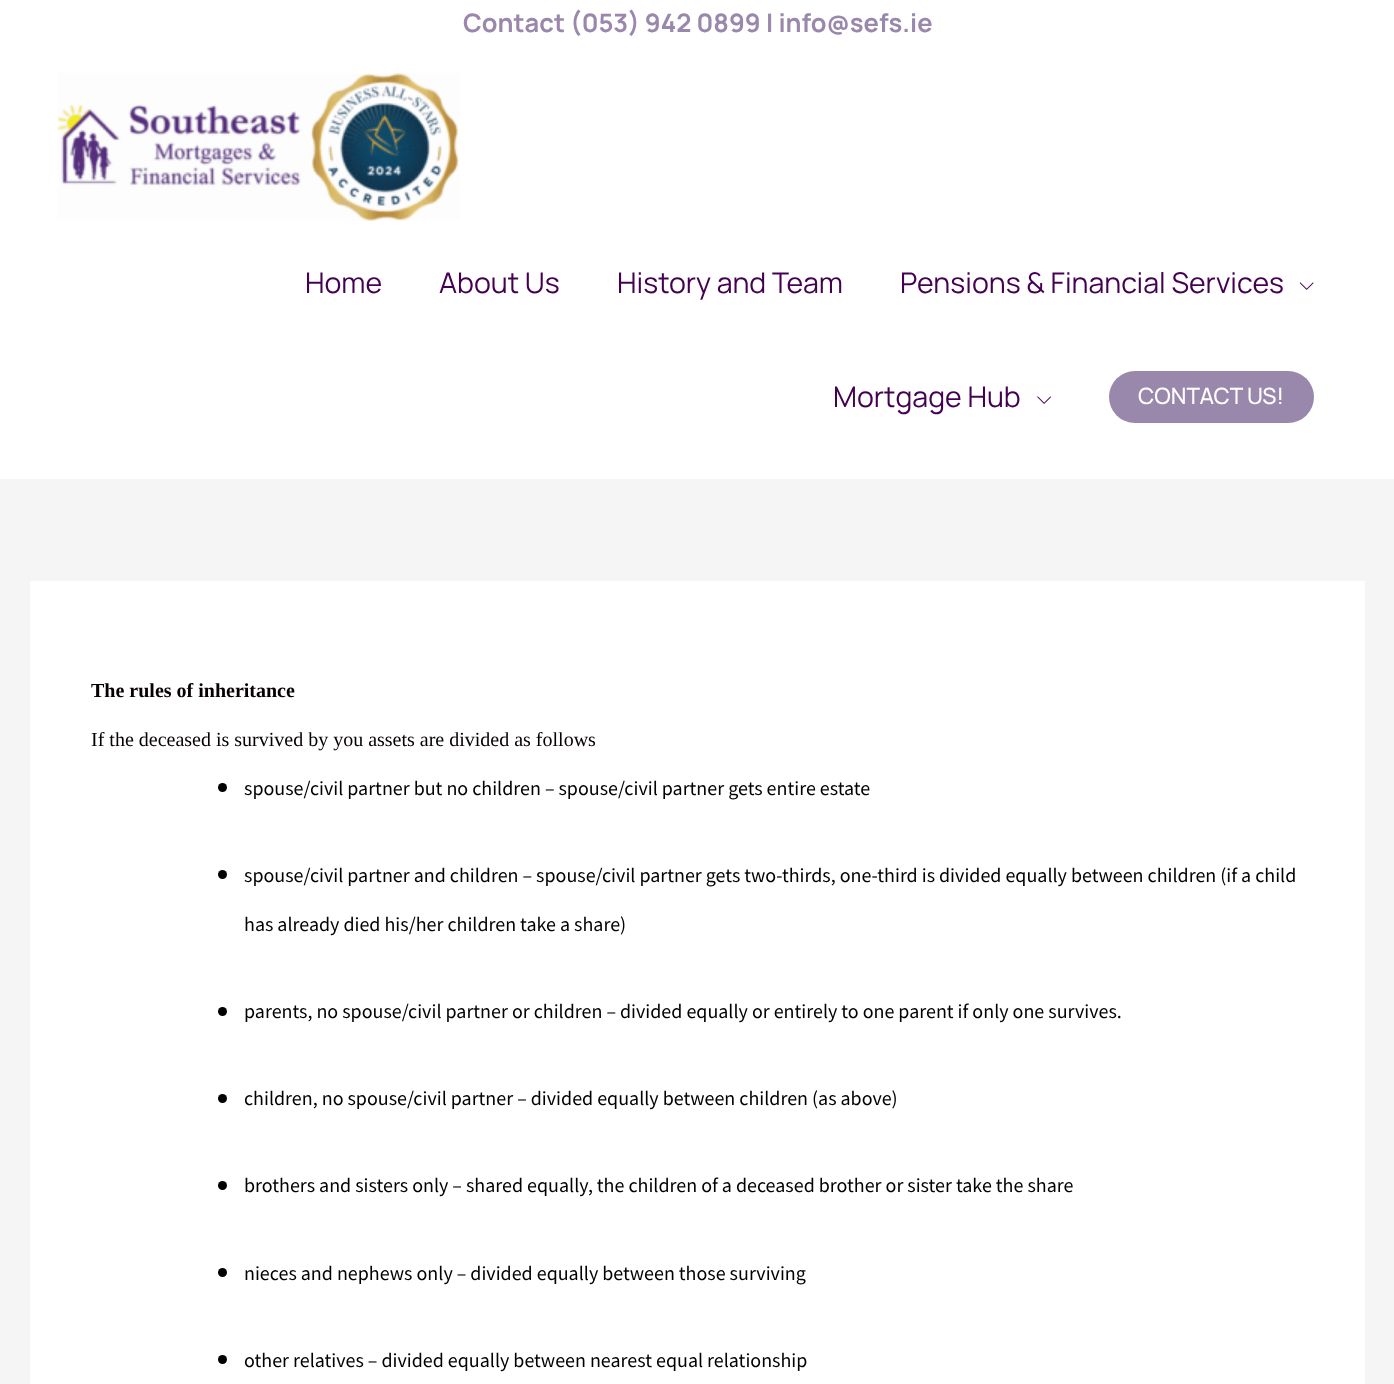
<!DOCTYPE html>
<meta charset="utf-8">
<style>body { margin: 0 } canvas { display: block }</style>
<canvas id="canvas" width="1394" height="1384"></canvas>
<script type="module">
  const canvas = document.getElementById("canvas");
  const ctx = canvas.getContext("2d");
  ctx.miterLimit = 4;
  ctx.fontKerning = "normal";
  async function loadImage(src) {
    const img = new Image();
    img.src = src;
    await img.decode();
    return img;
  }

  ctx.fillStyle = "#f5f5f5";
  ctx.fillRect(0, 0, 1394, 1384);
  ctx.fillStyle = "#ffffff";
  ctx.fillRect(0, 0, 1394, 479);
  ctx.font = "bold 25.5px Manrope";
  ctx.fillStyle = "#9a88ac";
  ctx.fillText("Contact (053) 942 0899 | info@sefs.ie", 463, 32);
  ctx.drawImage(await loadImage("img1.png"), 57, 73, 403, 148);
  ctx.font = "28.5px Manrope";
  ctx.fillStyle = "#450151";
  ctx.fillText("Home", 305, 293);
  ctx.fillText("About Us", 439, 293);
  ctx.fillText("History and Team", 617, 293);
  ctx.fillText("Pensions & Financial Services", 900, 293);
  ctx.drawImage(await loadImage("img2.png"), 1299, 282, 15, 8);
  ctx.fillText("Mortgage Hub", 833, 407);
  ctx.drawImage(await loadImage("img3.png"), 1037, 396, 14, 8);
  ctx.fillStyle = "#9a88ac";
  ctx.beginPath();
  ctx.roundRect(1109, 371, 205, 52, 26);
  ctx.fill();
  ctx.font = "500 22.5px Manrope";
  ctx.fillStyle = "#ffffff";
  ctx.fillText("CONTACT US!", 1138, 404);
  ctx.fillRect(30, 581, 1335, 803);
  ctx.font = "bold 20px Liberation Serif";
  ctx.fillStyle = "#070000";
  ctx.fillText("The rules of inheritance", 91, 697);
  ctx.font = "20px Liberation Serif";
  ctx.fillText("If the deceased is survived by you assets are divided as follows", 91, 746);
  ctx.fillStyle = "#000000";
  ctx.beginPath();
  ctx.arc(222.5, 787.5, 4.5, 0, Math.PI * 2);
  ctx.fill();
  ctx.font = "20px Source Sans Pro";
  ctx.fillText("spouse/civil partner but no children – spouse/civil partner gets entire estate", 244, 795);
  ctx.beginPath();
  ctx.arc(222.5, 874.5, 4.5, 0, Math.PI * 2);
  ctx.fill();
  ctx.fillText("spouse/civil partner and children – spouse/civil partner gets two-thirds, one-third is divided equally between children (if a child", 244, 882);
  ctx.fillText("has already died his/her children take a share)", 244, 931);
  ctx.beginPath();
  ctx.arc(222.5, 1011.5, 4.5, 0, Math.PI * 2);
  ctx.fill();
  ctx.fillText("parents, no spouse/civil partner or children – divided equally or entirely to one parent if only one survives.", 244, 1018);
  ctx.beginPath();
  ctx.arc(222.5, 1098.5, 4.5, 0, Math.PI * 2);
  ctx.fill();
  ctx.fillText("children, no spouse/civil partner – divided equally between children (as above)", 244, 1105);
  ctx.beginPath();
  ctx.arc(222.5, 1185.5, 4.5, 0, Math.PI * 2);
  ctx.fill();
  ctx.fillText("brothers and sisters only – shared equally, the children of a deceased brother or sister take the share", 244, 1192);
  ctx.beginPath();
  ctx.arc(222.5, 1272.5, 4.5, 0, Math.PI * 2);
  ctx.fill();
  ctx.fillText("nieces and nephews only – divided equally between those surviving", 244, 1280);
  ctx.beginPath();
  ctx.arc(222.5, 1359.5, 4.5, 0, Math.PI * 2);
  ctx.fill();
  ctx.fillText("other relatives – divided equally between nearest equal relationship", 244, 1367);
</script>
